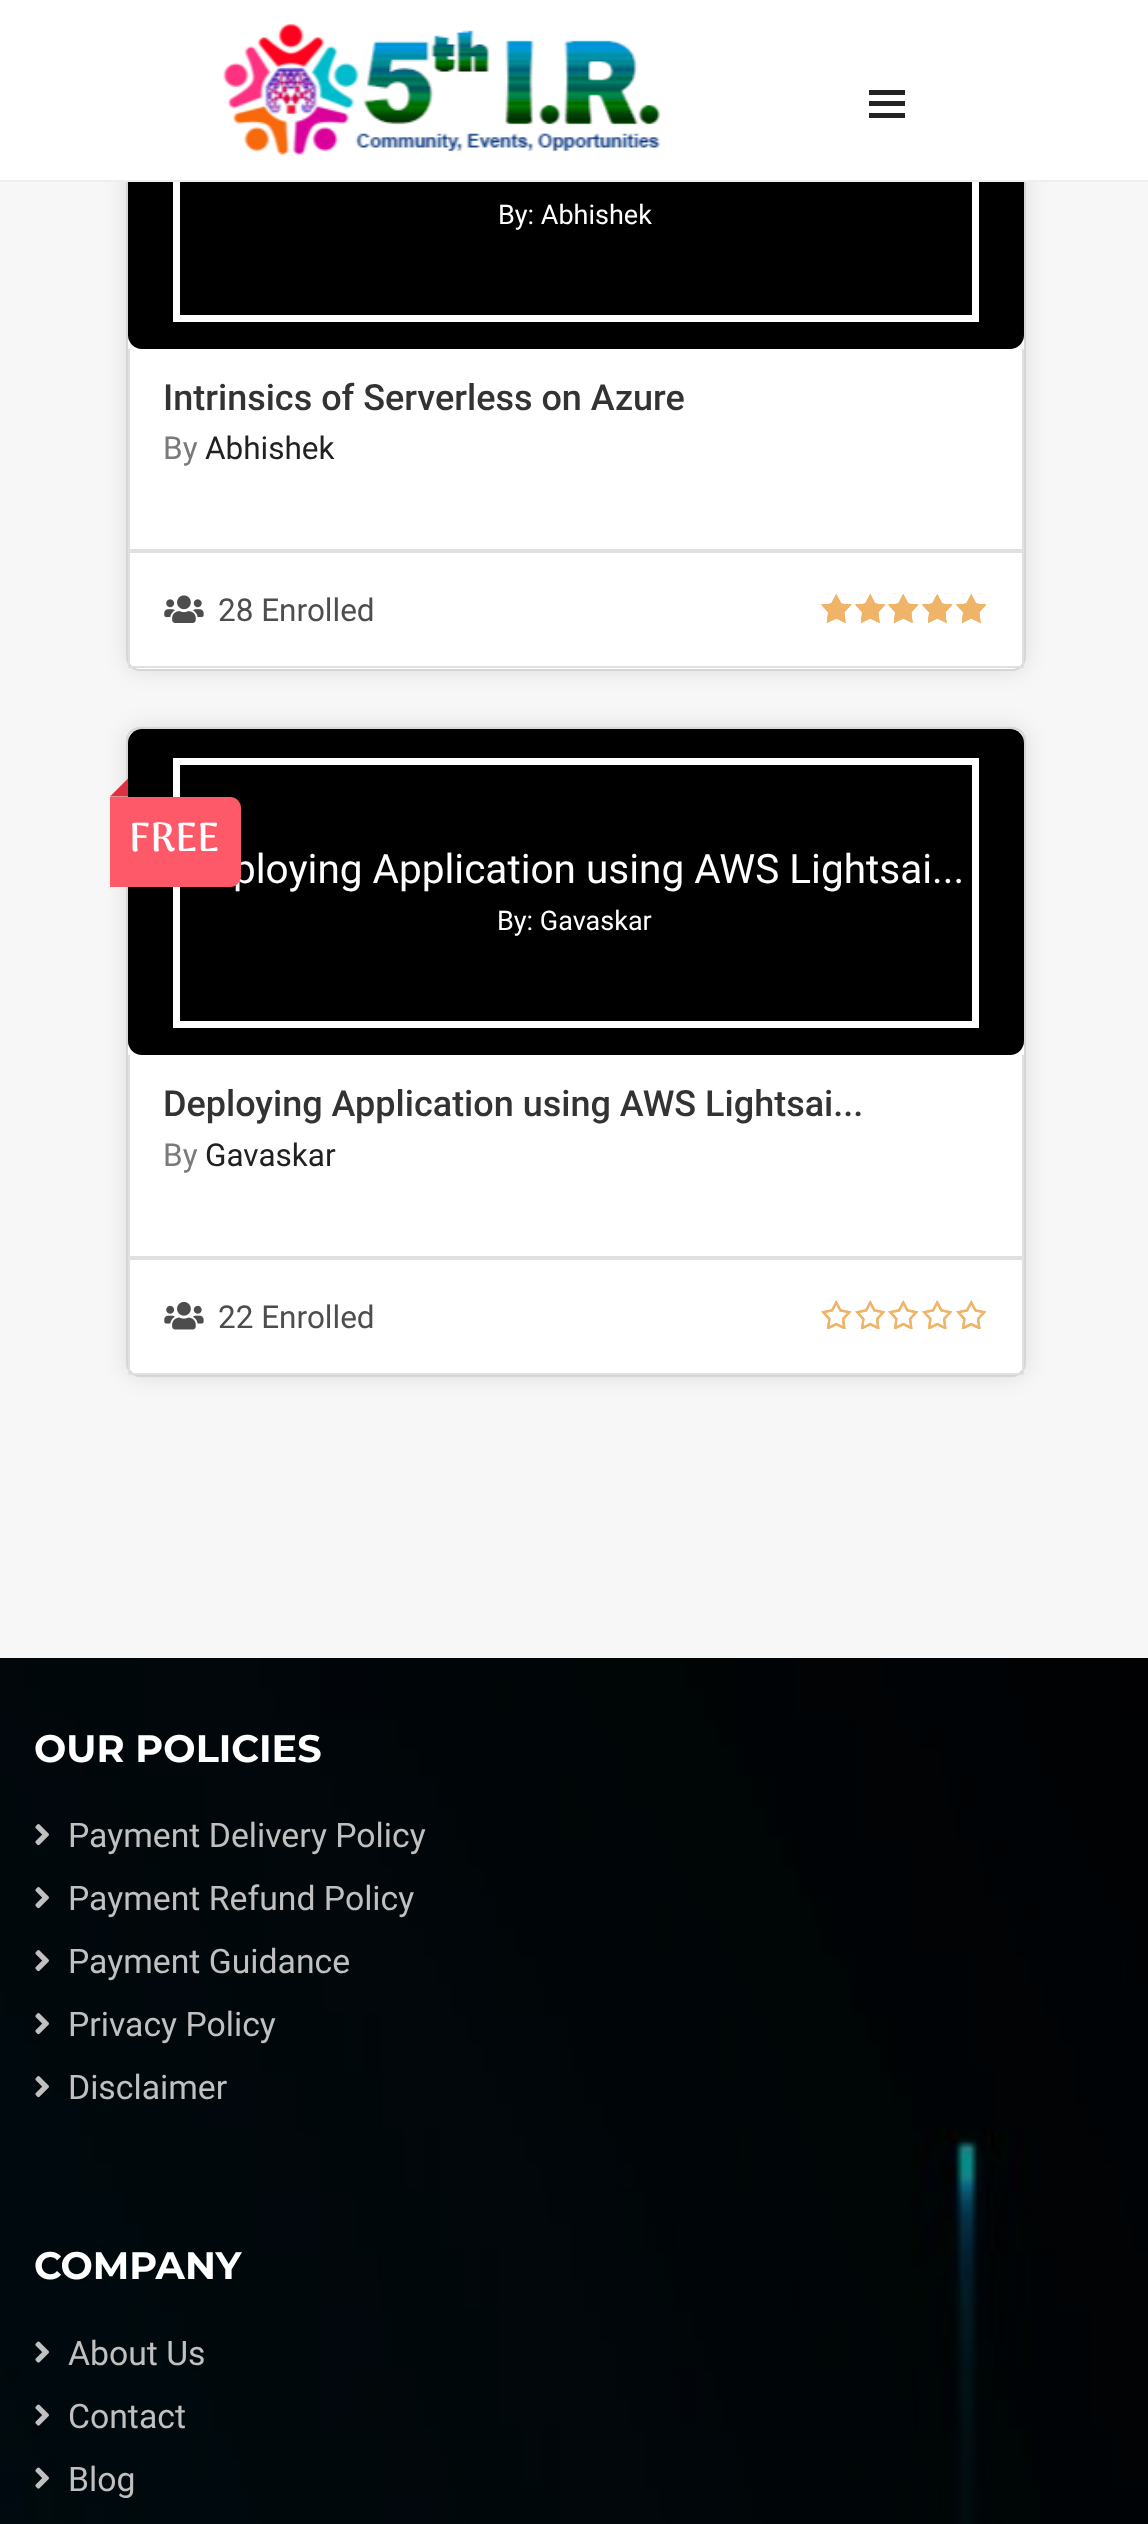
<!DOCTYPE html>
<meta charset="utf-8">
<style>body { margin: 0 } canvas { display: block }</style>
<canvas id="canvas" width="1148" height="2524"></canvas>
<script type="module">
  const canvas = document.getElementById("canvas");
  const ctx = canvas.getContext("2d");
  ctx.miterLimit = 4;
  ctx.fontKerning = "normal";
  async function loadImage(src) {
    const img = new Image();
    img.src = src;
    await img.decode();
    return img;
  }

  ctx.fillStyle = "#f7f7f7";
  ctx.fillRect(0, 0, 1148, 2524);
  ctx.fillStyle = "rgba(0, 0, 0, 0.1)";
  ctx.filter = "blur(11px)";
  ctx.beginPath();
  ctx.roundRect(126, 20, 900, 651, 14);
  ctx.fill();
  ctx.filter = "none";
  ctx.fillStyle = "#ffffff";
  ctx.beginPath();
  ctx.roundRect(127, 21, 898, 649, 13);
  ctx.fill();
  ctx.strokeStyle = "#d6d6d6";
  ctx.lineWidth = 2;
  ctx.stroke();
  ctx.fillStyle = "#000000";
  ctx.beginPath();
  ctx.roundRect(128, 23, 896, 326, 14);
  ctx.fill();
  ctx.strokeStyle = "#ffffff";
  ctx.lineWidth = 7;
  ctx.strokeRect(176.5, 55.5, 799, 263);
  ctx.fillStyle = "#ffffff";
  ctx.fillRect(0, 0, 1148, 180);
  ctx.fillStyle = "#eeeeee";
  ctx.fillRect(0, 180, 1148, 2);
  ctx.drawImage(await loadImage("img1.png"), 223, 23, 438, 132);
  ctx.fillStyle = "#232323";
  ctx.fillRect(869, 90, 36, 5);
  ctx.fillRect(869, 101, 36, 5);
  ctx.fillRect(869, 113, 36, 5);
  ctx.font = "27px Roboto";
  ctx.fillStyle = "#ffffff";
  ctx.fillText("By: Abhishek", 498, 224);
  ctx.fillStyle = "#e0e0e0";
  ctx.fillRect(1022, 349, 2, 202);
  ctx.fillRect(128, 549, 896, 2);
  ctx.fillRect(128, 349, 2, 202);
  ctx.font = "500 36px Roboto";
  ctx.fillStyle = "#333333";
  ctx.fillText("Intrinsics of Serverless on Azure", 163, 410);
  ctx.font = "31.5px Roboto";
  ctx.fillStyle = "#7a7a7a";
  ctx.fillText("By", 163, 459);
  ctx.fillStyle = "#212121";
  ctx.fillText("Abhishek", 205, 459);
  ctx.strokeStyle = "#e0e0e0";
  ctx.lineWidth = 2;
  ctx.strokeRect(129, 552, 894, 115);
  ctx.drawImage(await loadImage("img2.png"), 164, 595, 40, 28);
  ctx.fillStyle = "#4d4d4d";
  ctx.fillText("28 Enrolled", 218, 621);
  ctx.drawImage(await loadImage("img3.png"), 821, 593, 166, 30);
  ctx.drawImage(await loadImage("img4.png"), 821, 593, 160, 30);
  ctx.fillStyle = "rgba(0, 0, 0, 0.1)";
  ctx.filter = "blur(11px)";
  ctx.beginPath();
  ctx.roundRect(126, 727, 900, 650, 14);
  ctx.fill();
  ctx.filter = "none";
  ctx.fillStyle = "#ffffff";
  ctx.beginPath();
  ctx.roundRect(127, 728, 898, 648, 13);
  ctx.fill();
  ctx.strokeStyle = "#d6d6d6";
  ctx.stroke();
  ctx.fillStyle = "#000000";
  ctx.beginPath();
  ctx.roundRect(128, 729, 896, 326, 14);
  ctx.fill();
  ctx.strokeStyle = "#ffffff";
  ctx.lineWidth = 7;
  ctx.strokeRect(176.5, 761.5, 799, 263);
  ctx.font = "40.5px Roboto";
  ctx.fillStyle = "#ffffff";
  ctx.fillText("ploying Application using AWS Lightsai...", 233, 883);
  ctx.fillStyle = "#fe5969";
  ctx.beginPath();
  ctx.roundRect(110, 797, 131, 90, [0, 11, 11, 0]);
  ctx.fill();
  ctx.fillStyle = "#da3243";
  ctx.beginPath();
  ctx.moveTo(128, 796.5);
  ctx.lineTo(110, 796.5);
  ctx.lineTo(128, 778.5);
  ctx.closePath();
  ctx.fill();
  ctx.font = "bold 40.5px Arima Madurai";
  ctx.fillStyle = "#ffffff";
  ctx.fillText("FREE", 129, 851);
  ctx.font = "27px Roboto";
  ctx.fillText("By: Gavaskar", 497, 930);
  ctx.fillStyle = "#e0e0e0";
  ctx.fillRect(1022, 1055, 2, 203);
  ctx.fillRect(128, 1256, 896, 2);
  ctx.fillRect(128, 1055, 2, 203);
  ctx.font = "500 36px Roboto";
  ctx.fillStyle = "#333333";
  ctx.fillText("Deploying Application using AWS Lightsai...", 163, 1116);
  ctx.font = "31.5px Roboto";
  ctx.fillStyle = "#7a7a7a";
  ctx.fillText("By", 163, 1166);
  ctx.fillStyle = "#212121";
  ctx.fillText("Gavaskar", 205, 1166);
  ctx.strokeStyle = "#e0e0e0";
  ctx.lineWidth = 2;
  ctx.strokeRect(129, 1259, 894, 115);
  ctx.drawImage(await loadImage("img5.png"), 164, 1301, 40, 29);
  ctx.fillStyle = "#4d4d4d";
  ctx.fillText("22 Enrolled", 218, 1328);
  ctx.drawImage(await loadImage("img6.png"), 821, 1300, 166, 30);
  ctx.drawImage(await loadImage("img7.png"), 0, 1658, 1148, 866);
  ctx.font = "bold 38.25px Montserrat";
  ctx.fillStyle = "#ffffff";
  ctx.fillText("OUR POLICIES", 34, 1762);
  ctx.drawImage(await loadImage("img8.png"), 35, 1824, 14, 22);
  ctx.font = "33.75px Roboto";
  ctx.fillStyle = "#c0c0c0";
  ctx.fillText("Payment Delivery Policy", 68, 1847);
  ctx.drawImage(await loadImage("img9.png"), 35, 1887, 14, 22);
  ctx.fillText("Payment Refund Policy", 68, 1910);
  ctx.drawImage(await loadImage("img10.png"), 35, 1950, 14, 22);
  ctx.fillText("Payment Guidance", 68, 1973);
  ctx.drawImage(await loadImage("img11.png"), 35, 2013, 14, 22);
  ctx.fillText("Privacy Policy", 68, 2036);
  ctx.drawImage(await loadImage("img12.png"), 35, 2076, 14, 22);
  ctx.fillText("Disclaimer", 68, 2099);
  ctx.font = "bold 38.25px Montserrat";
  ctx.fillStyle = "#ffffff";
  ctx.fillText("COMPANY", 34, 2279);
  ctx.drawImage(await loadImage("img13.png"), 35, 2341, 14, 22);
  ctx.font = "33.75px Roboto";
  ctx.fillStyle = "#c0c0c0";
  ctx.fillText("About Us", 68, 2365);
  ctx.drawImage(await loadImage("img13.png"), 35, 2404, 14, 22);
  ctx.fillText("Contact", 68, 2428);
  ctx.drawImage(await loadImage("img14.png"), 35, 2467, 14, 22);
  ctx.fillText("Blog", 68, 2491);
</script>
